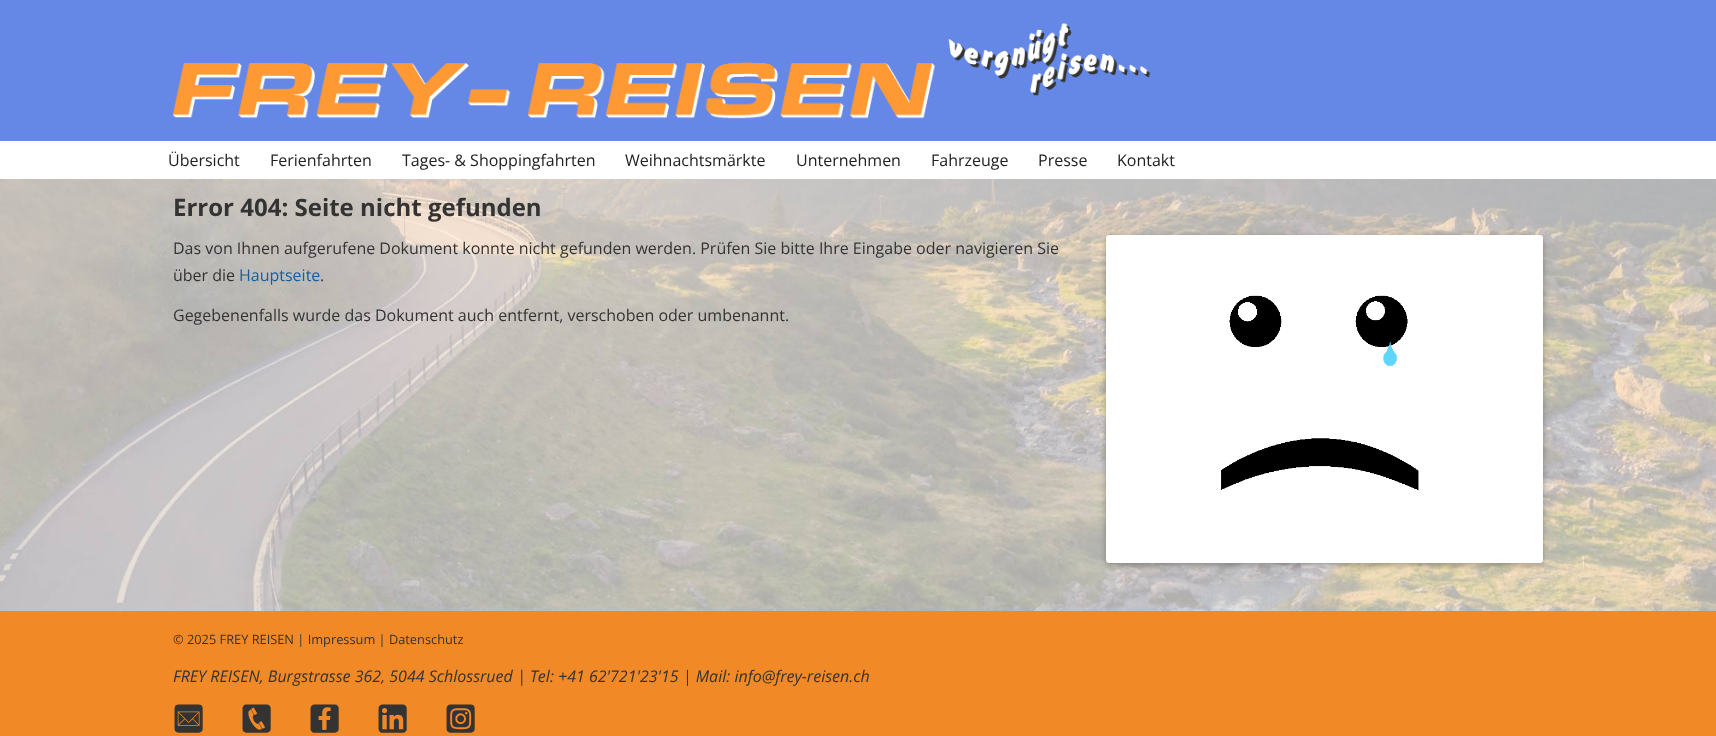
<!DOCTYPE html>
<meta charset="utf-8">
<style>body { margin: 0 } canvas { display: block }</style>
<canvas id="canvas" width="1716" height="736"></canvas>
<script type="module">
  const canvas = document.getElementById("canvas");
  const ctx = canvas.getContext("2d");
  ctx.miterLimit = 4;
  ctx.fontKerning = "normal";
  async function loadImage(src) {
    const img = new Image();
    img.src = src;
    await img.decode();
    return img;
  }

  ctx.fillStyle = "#ffffff";
  ctx.fillRect(0, 0, 1716, 736);
  ctx.drawImage(await loadImage("img1.png"), 0, 179, 1716, 432);
  ctx.fillStyle = "#6587e6";
  ctx.fillRect(0, 0, 1716, 141);
  ctx.drawImage(await loadImage("img2.png"), 173, 22, 978, 97);
  ctx.font = "16px Open Sans";
  ctx.fillStyle = "#212121";
  ctx.fillText("Übersicht", 168, 166);
  ctx.fillText("Ferienfahrten", 270, 166);
  ctx.fillText("Tages- & Shoppingfahrten", 402, 166);
  ctx.fillText("Weihnachtsmärkte", 625, 166);
  ctx.fillText("Unternehmen", 796, 166);
  ctx.fillText("Fahrzeuge", 931, 166);
  ctx.fillText("Presse", 1038, 166);
  ctx.fillText("Kontakt", 1117, 166);
  ctx.font = "bold 24px Open Sans";
  ctx.fillStyle = "#333333";
  ctx.fillText("Error 404: Seite nicht gefunden", 173, 216);
  ctx.font = "16px Open Sans";
  ctx.fillText("Das von Ihnen aufgerufene Dokument konnte nicht gefunden werden. Prüfen Sie bitte Ihre Eingabe oder navigieren Sie", 173, 254);
  ctx.fillText("über die", 173, 281);
  ctx.fillStyle = "#135fa2";
  ctx.fillText("Hauptseite", 239, 281);
  ctx.fillStyle = "#333333";
  ctx.fillText(".", 320, 281);
  ctx.fillText("Gegebenenfalls wurde das Dokument auch entfernt, verschoben oder umbenannt.", 173, 321);
  ctx.fillStyle = "rgba(0, 0, 0, 0.3)";
  ctx.filter = "blur(3px)";
  ctx.beginPath();
  ctx.roundRect(1106, 237, 437, 328, 3);
  ctx.fill();
  ctx.filter = "none";
  ctx.drawImage(await loadImage("img3.png"), 1106, 235, 437, 328);
  ctx.fillStyle = "#f18927";
  ctx.fillRect(0, 611, 1716, 125);
  ctx.font = "12.8px Open Sans";
  ctx.fillStyle = "#333333";
  ctx.fillText("© 2025 FREY REISEN | Impressum | Datenschutz", 173, 644);
  ctx.font = "italic 16px Open Sans";
  ctx.fillText("FREY REISEN, Burgstrasse 362, 5044 Schlossrued | Tel: +41 62'721'23'15 | Mail: info@frey-reisen.ch", 173, 682);
  ctx.font = "32px 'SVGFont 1'";
  ctx.fillText("m", 173, 735);
  ctx.fillText("c", 241, 735);
  ctx.fillText("f", 309, 735);
  ctx.fillText("l", 377, 735);
  ctx.fillText("I", 445, 735);
</script>
